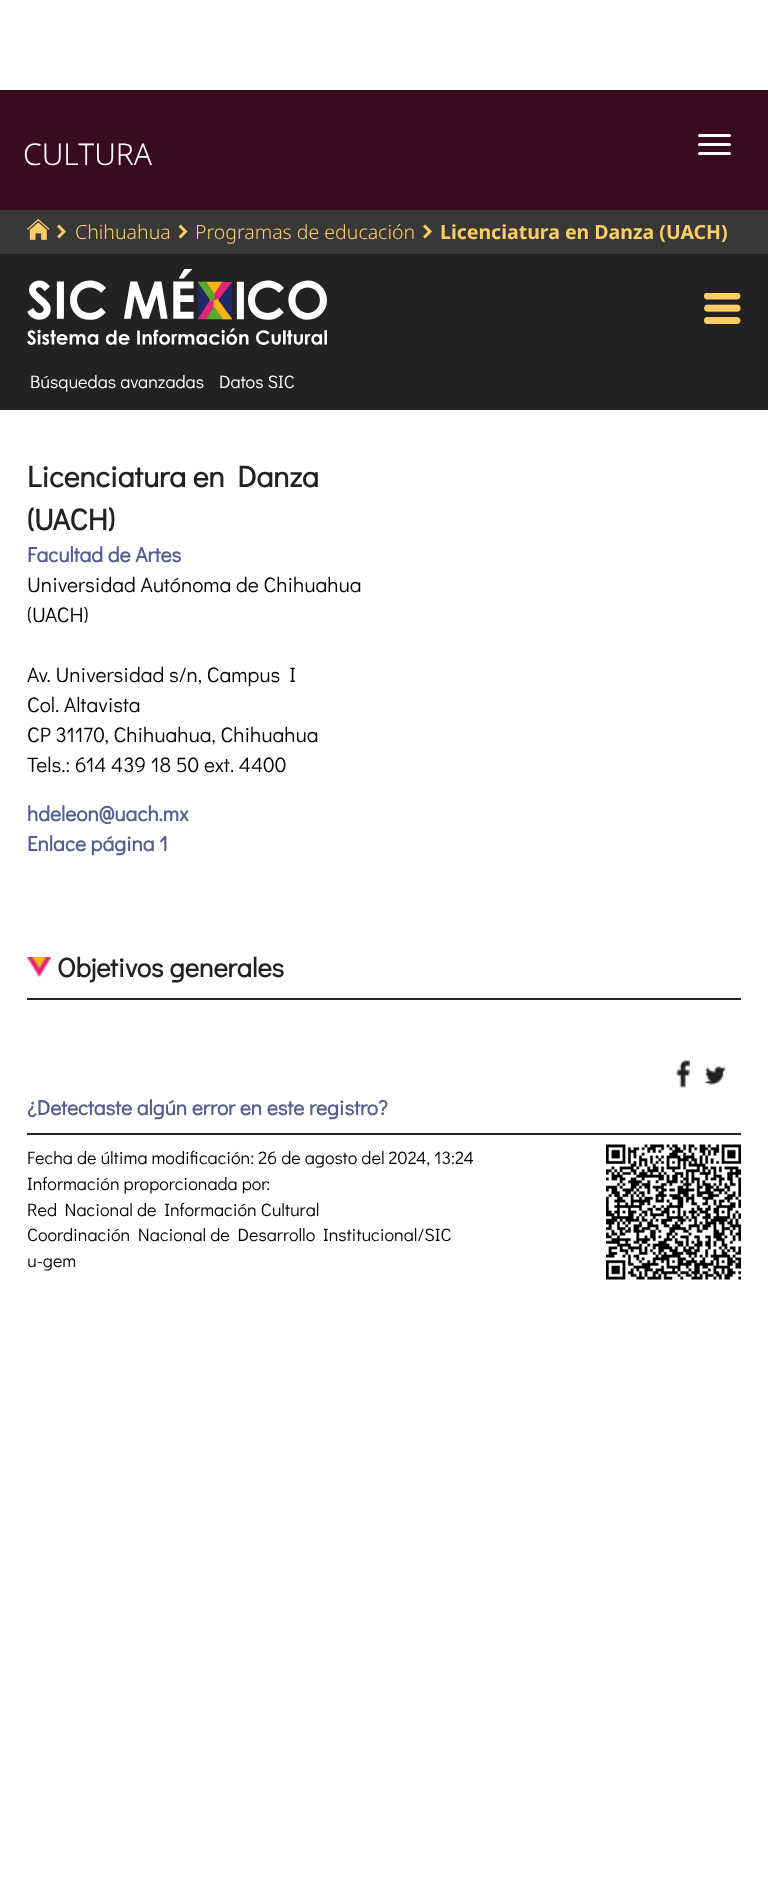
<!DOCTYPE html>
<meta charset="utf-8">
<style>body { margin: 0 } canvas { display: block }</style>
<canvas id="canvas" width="768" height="1878"></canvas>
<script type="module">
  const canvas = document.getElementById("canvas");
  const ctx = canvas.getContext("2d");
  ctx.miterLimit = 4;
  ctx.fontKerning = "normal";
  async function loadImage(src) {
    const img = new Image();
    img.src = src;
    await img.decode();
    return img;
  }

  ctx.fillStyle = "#ffffff";
  ctx.fillRect(0, 0, 768, 1878);
  ctx.fillStyle = "#3a0b1f";
  ctx.fillRect(0, 90, 768, 120);
  ctx.font = "300 30px Noto Sans";
  ctx.fillStyle = "#ffffff";
  ctx.fillText("CULTURA", 23, 165);
  ctx.beginPath();
  ctx.roundRect(698, 134, 33, 3, 1.5);
  ctx.fill();
  ctx.beginPath();
  ctx.roundRect(698, 143, 33, 3, 1.5);
  ctx.fill();
  ctx.beginPath();
  ctx.roundRect(698, 152, 33, 3, 1.5);
  ctx.fill();
  ctx.fillStyle = "#373837";
  ctx.fillRect(0, 210, 768, 44);
  ctx.drawImage(await loadImage("img1.png"), 27, 218, 23, 22);
  ctx.drawImage(await loadImage("img2.png"), 57, 224, 9, 15);
  ctx.font = "300 19.5px Noto Sans";
  ctx.fillStyle = "#ffcc66";
  ctx.fillText("Chihuahua", 75, 239);
  ctx.drawImage(await loadImage("img3.png"), 178, 224, 10, 15);
  ctx.fillText("Programas de educación", 195, 239);
  ctx.drawImage(await loadImage("img2.png"), 423, 224, 9, 15);
  ctx.font = "bold 19.5px Noto Sans";
  ctx.fillText("Licenciatura en Danza (UACH)", 440, 239);
  ctx.fillStyle = "#212221";
  ctx.fillRect(0, 254, 768, 156);
  ctx.drawImage(await loadImage("img4.png"), 27, 269, 300, 76);
  ctx.drawImage(await loadImage("img5.png"), 704, 293, 37, 31);
  ctx.font = "18px Didact Gothic";
  ctx.fillStyle = "#ffffff";
  ctx.fillText("Búsquedas avanzadas", 30, 388);
  ctx.fillText("Datos SIC", 219, 388);
  ctx.font = "bold 30px Didact Gothic";
  ctx.fillStyle = "#212221";
  ctx.fillText("Licenciatura en Danza", 27, 487);
  ctx.fillText("(UACH)", 27, 530);
  ctx.font = "bold 21px Didact Gothic";
  ctx.fillStyle = "#575e8e";
  ctx.fillText("Facultad de Artes", 27, 562);
  ctx.font = "21px Didact Gothic";
  ctx.fillStyle = "#000000";
  ctx.fillText("Universidad Autónoma de Chihuahua", 27, 592);
  ctx.fillText("(UACH)", 27, 622);
  ctx.fillText("Av. Universidad s/n, Campus I", 27, 682);
  ctx.fillText("Col. Altavista", 27, 712);
  ctx.fillText("CP 31170, Chihuahua, Chihuahua", 27, 742);
  ctx.fillText("Tels.: 614 439 18 50 ext. 4400", 27, 772);
  ctx.font = "bold 21px Didact Gothic";
  ctx.fillStyle = "#575e8e";
  ctx.fillText("hdeleon@uach.mx", 27, 821);
  ctx.fillText("Enlace página 1", 27, 851);
  ctx.drawImage(await loadImage("img6.png"), 27, 957, 24, 20);
  ctx.font = "bold 27px Didact Gothic";
  ctx.fillStyle = "#212221";
  ctx.fillText("Objetivos generales", 57, 977);
  ctx.fillRect(27, 998, 714, 2);
  ctx.drawImage(await loadImage("img7.png"), 676, 1060, 14, 28);
  ctx.drawImage(await loadImage("img8.png"), 705, 1066, 21, 19);
  ctx.font = "bold 21px Didact Gothic";
  ctx.fillStyle = "#575e8e";
  ctx.fillText("¿Detectaste algún error en este registro?", 27, 1115);
  ctx.fillStyle = "#212221";
  ctx.fillRect(27, 1133, 714, 2);
  ctx.font = "18px Didact Gothic";
  ctx.fillStyle = "#000000";
  ctx.fillText("Fecha de última modificación: 26 de agosto del 2024, 13:24", 27, 1164);
  ctx.fillText("Información proporcionada por:", 27, 1190);
  ctx.fillText("Red Nacional de Información Cultural", 27, 1216);
  ctx.fillText("Coordinación Nacional de Desarrollo Institucional/SIC", 27, 1241);
  ctx.fillText("u-gem", 27, 1267);
  ctx.drawImage(await loadImage("img9.png"), 606, 1144, 135, 136);
</script>
